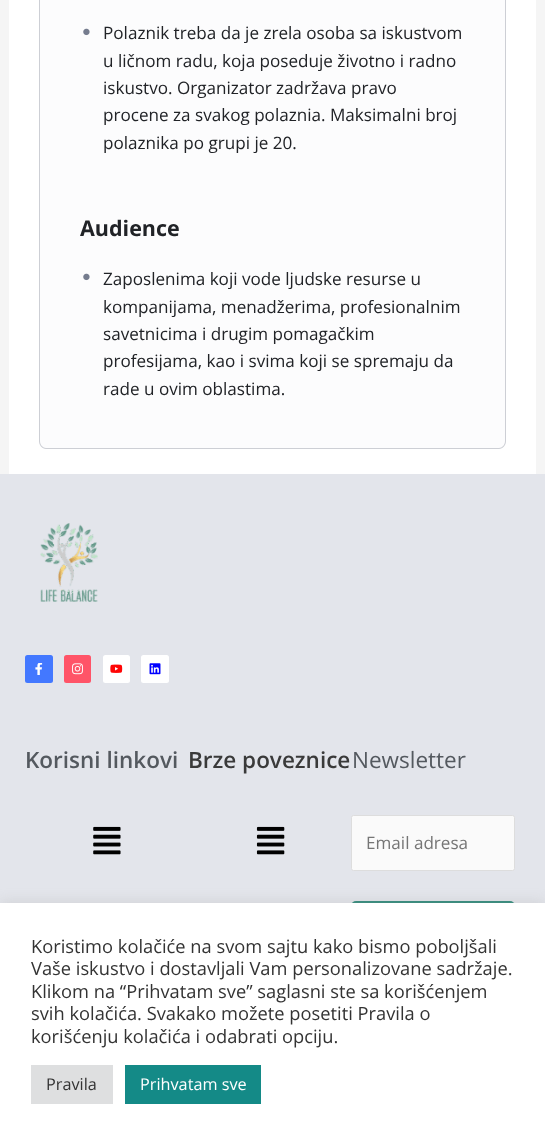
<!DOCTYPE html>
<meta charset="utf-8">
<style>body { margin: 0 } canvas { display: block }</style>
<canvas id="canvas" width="545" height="1141"></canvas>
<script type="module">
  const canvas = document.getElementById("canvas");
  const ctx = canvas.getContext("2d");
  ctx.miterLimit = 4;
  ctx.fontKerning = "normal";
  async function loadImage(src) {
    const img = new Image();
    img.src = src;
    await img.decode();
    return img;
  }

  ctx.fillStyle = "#f5f5f5";
  ctx.fillRect(0, 0, 545, 1141);
  ctx.fillStyle = "#ffffff";
  ctx.fillRect(9, 0, 527, 474);
  ctx.fillStyle = "#fcfcfd";
  ctx.fillRect(40, 0, 465, 191);
  ctx.fillStyle = "#cdcfd5";
  ctx.fillRect(505, 0, 1, 191);
  ctx.fillRect(39, 0, 1, 191);
  ctx.drawImage(await loadImage("img1.png"), 83, 28, 7, 8);
  ctx.font = "17.1px Open Sans";
  ctx.fillStyle = "#212327";
  ctx.fillText("Polaznik treba da je zrela osoba sa iskustvom", 103, 39);
  ctx.fillText("u ličnom radu, koja poseduje životno i radno", 103, 67);
  ctx.fillText("iskustvo. Organizator zadržava pravo", 103, 94);
  ctx.fillText("procene za svakog polaznia. Maksimalni broj", 103, 121);
  ctx.fillText("polaznika po grupi je 20.", 103, 149);
  ctx.fillStyle = "#fcfcfd";
  ctx.beginPath();
  ctx.roundRect(39, 191, 467, 258, [0, 0, 8, 8]);
  ctx.fill();
  ctx.fillStyle = "#cdcfd5";
  ctx.beginPath();
  ctx.moveTo(39, 191);
  ctx.lineTo(506, 191);
  ctx.lineTo(506, 441);
  ctx.bezierCurveTo(506, 445, 503, 449, 499, 449);
  ctx.lineTo(46, 449);
  ctx.bezierCurveTo(42, 449, 39, 445, 39, 441);
  ctx.closePath();
  ctx.moveTo(40, 191);
  ctx.lineTo(505, 191);
  ctx.lineTo(505, 441);
  ctx.bezierCurveTo(505, 445, 502, 448, 499, 448);
  ctx.lineTo(46, 448);
  ctx.bezierCurveTo(43, 448, 40, 445, 40, 441);
  ctx.closePath();
  ctx.fill("evenodd");
  ctx.font = "bold 21.5px Open Sans";
  ctx.fillStyle = "#212327";
  ctx.fillText("Audience", 80, 236);
  ctx.drawImage(await loadImage("img1.png"), 83, 273, 7, 8);
  ctx.font = "17.1px Open Sans";
  ctx.fillText("Zaposlenima koji vode ljudske resurse u", 103, 285);
  ctx.fillText("kompanijama, menadžerima, profesionalnim", 103, 313);
  ctx.fillText("savetnicima i drugim pomagačkim", 103, 340);
  ctx.fillText("profesijama, kao i svima koji se spremaju da", 103, 367);
  ctx.fillText("rade u ovim oblastima.", 103, 395);
  ctx.fillStyle = "#e3e5eb";
  ctx.fillRect(0, 474, 545, 429);
  ctx.drawImage(await loadImage("img2.png"), 40, 523, 58, 79);
  ctx.fillStyle = "#4378ff";
  ctx.beginPath();
  ctx.roundRect(25, 655, 28, 28, 2.5);
  ctx.fill();
  ctx.drawImage(await loadImage("img3.png"), 35, 663, 8, 12);
  ctx.fillStyle = "#ff5468";
  ctx.beginPath();
  ctx.roundRect(64, 655, 27, 28, 2.5);
  ctx.fill();
  ctx.drawImage(await loadImage("img4.png"), 72, 663, 11, 12);
  ctx.fillStyle = "#ffffff";
  ctx.beginPath();
  ctx.roundRect(103, 655, 27, 28, 2.5);
  ctx.fill();
  ctx.drawImage(await loadImage("img5.png"), 110, 664, 13, 9);
  ctx.beginPath();
  ctx.roundRect(141, 655, 28, 28, 2.5);
  ctx.fill();
  ctx.drawImage(await loadImage("img6.png"), 149, 663, 12, 12);
  ctx.font = "600 22.5px Open Sans";
  ctx.fillStyle = "#54595f";
  ctx.fillText("Korisni linkovi", 25, 768);
  ctx.drawImage(await loadImage("img7.png"), 93, 826, 28, 29);
  ctx.fillStyle = "#3a3a3a";
  ctx.fillText("Brze poveznice", 188, 768);
  ctx.drawImage(await loadImage("img8.png"), 256, 826, 29, 29);
  ctx.font = "22.5px Open Sans";
  ctx.fillStyle = "#54595f";
  ctx.fillText("Newsletter", 352, 768);
  ctx.fillStyle = "#fafafa";
  ctx.beginPath();
  ctx.roundRect(351.5, 815.5, 163, 55, 2);
  ctx.fill();
  ctx.strokeStyle = "#dddddd";
  ctx.stroke();
  ctx.font = "17.1px Open Sans";
  ctx.fillStyle = "#757575";
  ctx.fillText("Email adresa", 366, 849);
  ctx.fillStyle = "#278575";
  ctx.beginPath();
  ctx.roundRect(351, 901, 164, 55, 5);
  ctx.fill();
  ctx.fillStyle = "rgba(172, 171, 171, 0.3)";
  ctx.filter = "blur(6px)";
  ctx.beginPath();
  ctx.rect(0, 901, 545, 239);
  ctx.fill();
  ctx.filter = "none";
  ctx.fillStyle = "#ffffff";
  ctx.fillRect(0, 903, 545, 238);
  ctx.font = "18.3px Open Sans";
  ctx.fillStyle = "#333333";
  ctx.fillText("Koristimo kolačiće na svom sajtu kako bismo poboljšali", 31, 953);
  ctx.fillText("Vaše iskustvo i dostavljali Vam personalizovane sadržaje.", 31, 975);
  ctx.fillText("Klikom na “Prihvatam sve” saglasni ste sa korišćenjem", 31, 998);
  ctx.fillText("svih kolačića. Svakako možete posetiti Pravila o", 31, 1020);
  ctx.fillText("korišćenju kolačića i odabrati opciju.", 31, 1043);
  ctx.fillStyle = "#dedfe0";
  ctx.fillRect(31, 1065, 82, 39);
  ctx.font = "16.25px Open Sans";
  ctx.fillStyle = "#333333";
  ctx.fillText("Pravila", 46, 1090);
  ctx.fillStyle = "#148a87";
  ctx.fillRect(125, 1065, 136, 39);
  ctx.fillStyle = "#ffffff";
  ctx.fillText("Prihvatam sve", 140, 1090);
</script>
